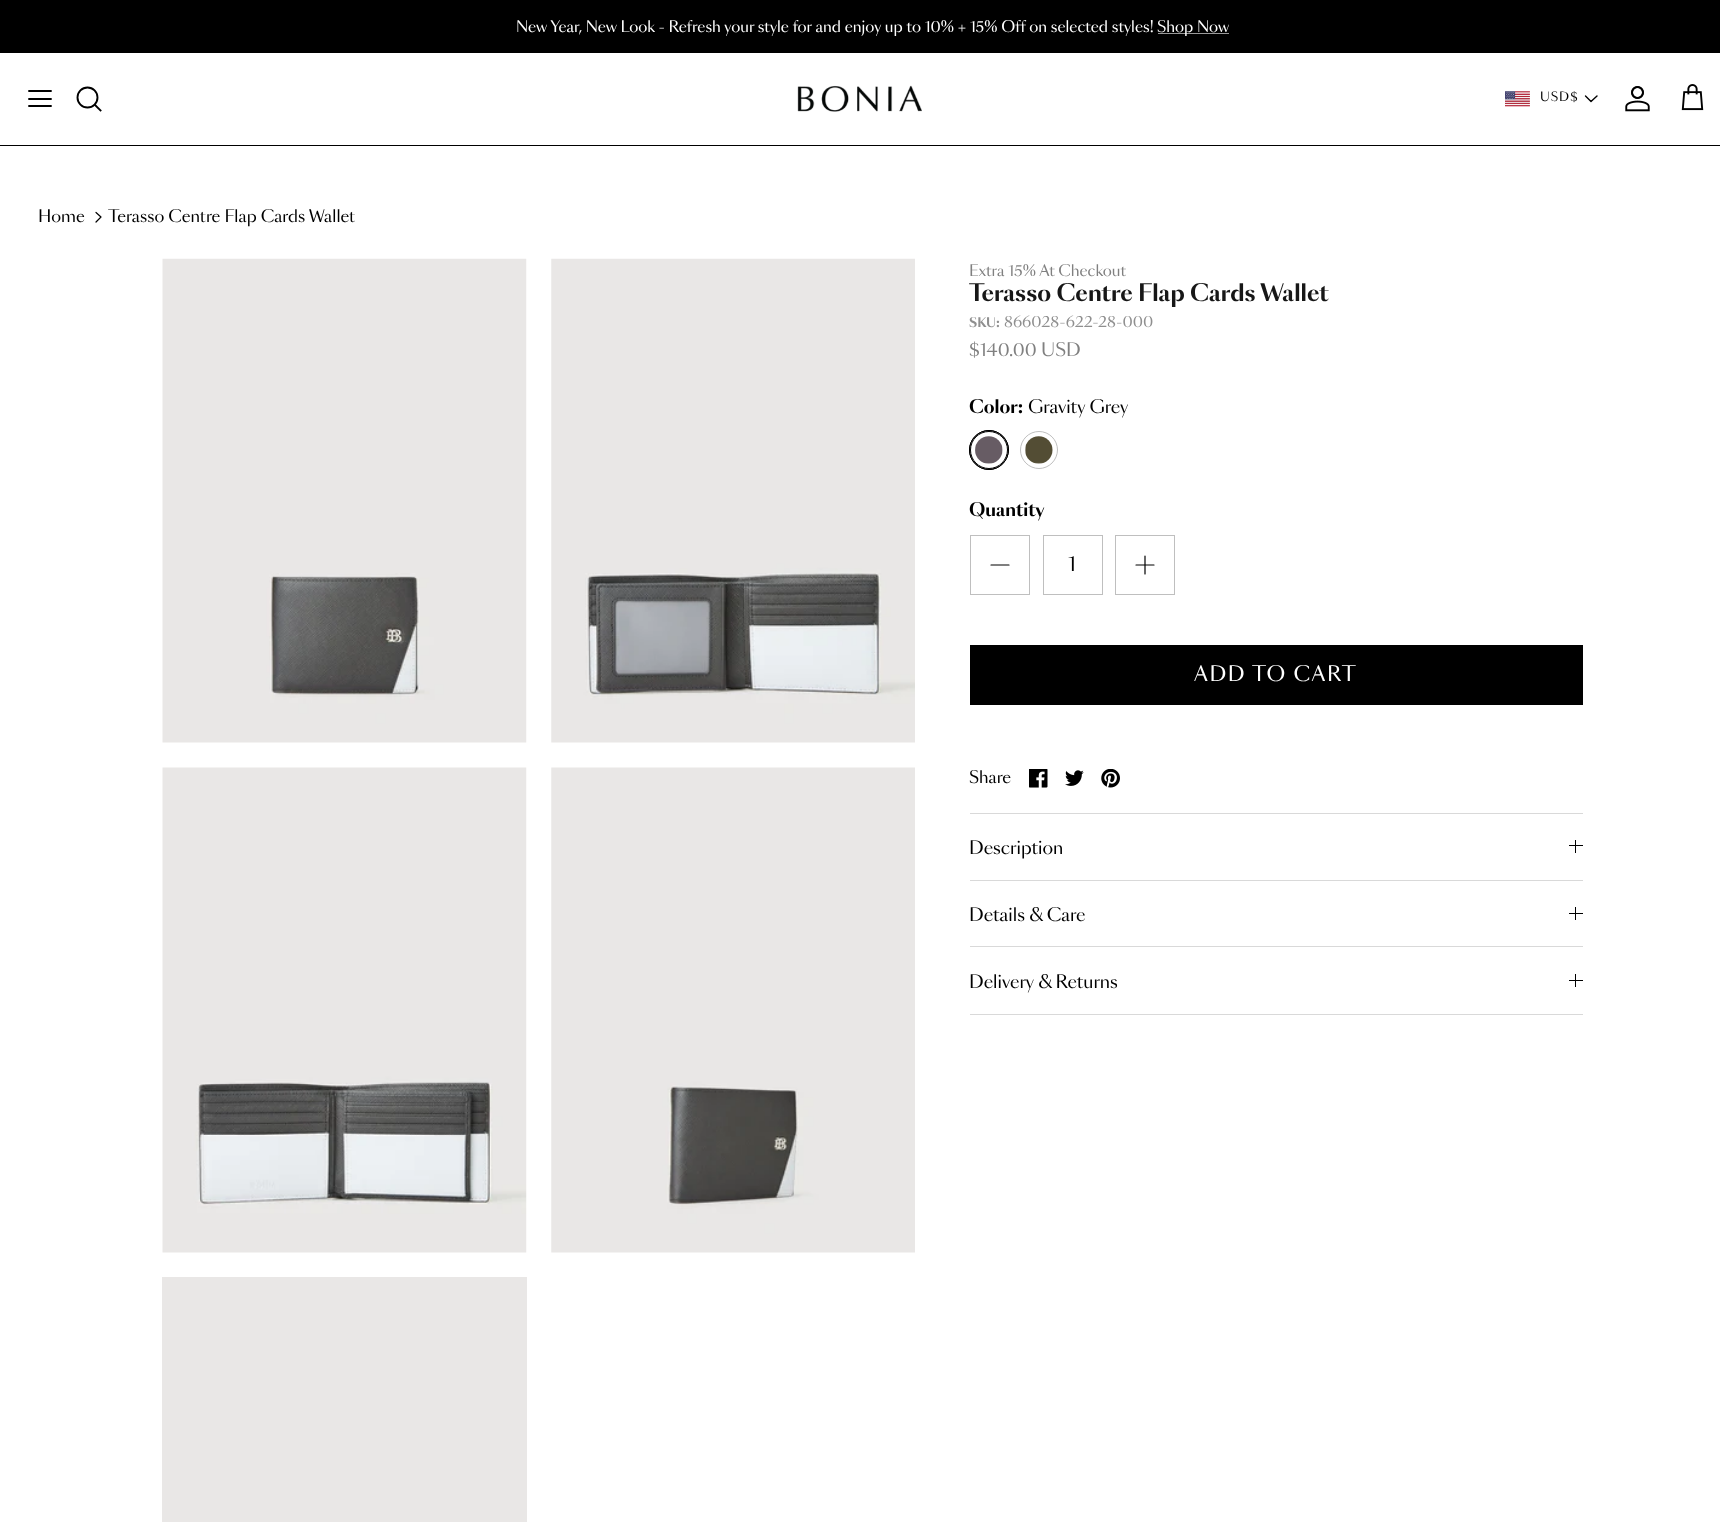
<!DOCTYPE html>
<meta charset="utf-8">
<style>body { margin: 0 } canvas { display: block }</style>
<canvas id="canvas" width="1720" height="1522"></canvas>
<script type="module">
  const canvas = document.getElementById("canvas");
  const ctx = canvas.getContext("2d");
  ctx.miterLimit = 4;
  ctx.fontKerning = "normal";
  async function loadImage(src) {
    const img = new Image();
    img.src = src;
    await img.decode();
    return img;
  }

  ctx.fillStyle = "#ffffff";
  ctx.fillRect(0, 0, 1720, 1522);
  ctx.fillStyle = "#000000";
  ctx.fillRect(0, 0, 1720, 53);
  ctx.font = "15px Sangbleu";
  ctx.fillStyle = "#ffffff";
  ctx.fillText("New Year, New Look - Refresh your style for and enjoy up to 10% + 15% Off on selected styles!", 516, 32);
  ctx.fillStyle = "#999999";
  ctx.fillRect(1158, 33, 71, 1);
  ctx.fillStyle = "#ffffff";
  ctx.fillText("Shop Now", 1157, 32);
  ctx.fillStyle = "#000000";
  ctx.fillRect(0, 145, 1720, 1);
  ctx.beginPath();
  ctx.moveTo(29, 99);
  ctx.lineTo(51, 99);
  ctx.moveTo(29, 91);
  ctx.lineTo(51, 91);
  ctx.moveTo(29, 106);
  ctx.lineTo(51, 106);
  ctx.strokeStyle = "#000000";
  ctx.lineWidth = 1.9;
  ctx.lineCap = "round";
  ctx.lineJoin = "round";
  ctx.stroke();
  ctx.beginPath();
  ctx.arc(87.5, 97.5, 10, 0, Math.PI * 2);
  ctx.stroke();
  ctx.beginPath();
  ctx.moveTo(95, 105);
  ctx.lineTo(100.5, 110.5);
  ctx.lineCap = "square";
  ctx.lineJoin = "miter";
  ctx.stroke();
  ctx.drawImage(await loadImage("img1.png"), 797, 85, 125, 27);
  ctx.drawImage(await loadImage("img2.png"), 1505, 91, 25, 16);
  ctx.letterSpacing = "1px";
  ctx.font = "12px Sangbleu";
  ctx.fillText("USD$", 1540, 101);
  ctx.beginPath();
  ctx.moveTo(1585.5, 96);
  ctx.lineTo(1591, 101.5);
  ctx.lineTo(1597, 96);
  ctx.lineWidth = 1.4;
  ctx.lineCap = "round";
  ctx.lineJoin = "round";
  ctx.stroke();
  ctx.drawImage(await loadImage("img3.png"), 1625, 86, 25, 26);
  ctx.drawImage(await loadImage("img4.png"), 1681, 84, 23, 27);
  ctx.letterSpacing = "0px";
  ctx.font = "16.25px Sangbleu";
  ctx.fillText("Home", 38, 222);
  ctx.beginPath();
  ctx.moveTo(96, 222);
  ctx.lineTo(101, 217);
  ctx.lineTo(96, 212.5);
  ctx.lineWidth = 1.2;
  ctx.stroke();
  ctx.fillText("Terasso Centre Flap Cards Wallet", 108, 222);
  ctx.drawImage(await loadImage("img5.png"), 162, 258, 365, 485);
  ctx.drawImage(await loadImage("img6.png"), 551, 258, 364, 485);
  ctx.drawImage(await loadImage("img7.png"), 162, 767, 365, 486);
  ctx.drawImage(await loadImage("img8.png"), 551, 767, 364, 486);
  ctx.fillStyle = "#e9e7e6";
  ctx.fillRect(162, 1277, 365, 245);
  ctx.font = "15px Sangbleu";
  ctx.fillStyle = "#808080";
  ctx.fillText("Extra 15% At Checkout", 969, 276);
  ctx.font = "bold 22.5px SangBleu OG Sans";
  ctx.fillStyle = "#171717";
  ctx.fillText("Terasso Centre Flap Cards Wallet", 969, 301);
  ctx.font = "bold 12.5px SangBleu OG Sans";
  ctx.fillStyle = "#8f8f8f";
  ctx.fillText("SKU:", 969, 327);
  ctx.font = "15px Sangbleu";
  ctx.fillText("866028-622-28-000", 1004, 327);
  ctx.font = "17.5px Sangbleu";
  ctx.fillStyle = "#808080";
  ctx.fillText("$140.00 USD", 969, 356);
  ctx.font = "bold 17.5px SangBleu OG Sans";
  ctx.fillStyle = "#000000";
  ctx.fillText("Color:", 969, 413);
  ctx.font = "17.5px Sangbleu";
  ctx.fillText("Gravity Grey", 1028, 413);
  ctx.beginPath();
  ctx.arc(989, 450, 19.5, 0, Math.PI * 2);
  ctx.lineWidth = 1;
  ctx.stroke();
  ctx.drawImage(await loadImage("img9.png"), 975, 436, 28, 28);
  ctx.beginPath();
  ctx.arc(989, 450, 19.5, 0, Math.PI * 2);
  ctx.stroke();
  ctx.beginPath();
  ctx.arc(989, 450, 18.5, 0, Math.PI * 2);
  ctx.stroke();
  ctx.drawImage(await loadImage("img10.png"), 1025, 436, 28, 28);
  ctx.beginPath();
  ctx.arc(1039, 450, 18.5, 0, Math.PI * 2);
  ctx.strokeStyle = "#bfbfbf";
  ctx.stroke();
  ctx.font = "bold 17.5px SangBleu OG Sans";
  ctx.fillText("Quantity", 969, 516);
  ctx.lineJoin = "miter";
  ctx.strokeRect(970.5, 535.5, 59, 59);
  ctx.beginPath();
  ctx.moveTo(991, 565);
  ctx.lineTo(1009, 565);
  ctx.strokeStyle = "#000000";
  ctx.lineWidth = 1.2;
  ctx.lineJoin = "round";
  ctx.stroke();
  ctx.strokeStyle = "#bfbfbf";
  ctx.lineWidth = 1;
  ctx.lineJoin = "miter";
  ctx.strokeRect(1043.5, 535.5, 59, 59);
  ctx.font = "20px Sangbleu";
  ctx.fillText("1", 1068, 571);
  ctx.strokeRect(1115.5, 535.5, 59, 59);
  ctx.beginPath();
  ctx.moveTo(1145, 556);
  ctx.lineTo(1145, 574);
  ctx.moveTo(1136, 565);
  ctx.lineTo(1154, 565);
  ctx.strokeStyle = "#000000";
  ctx.lineWidth = 1.2;
  ctx.lineJoin = "round";
  ctx.stroke();
  ctx.fillRect(970, 645, 613, 60);
  ctx.letterSpacing = "1.6px";
  ctx.fillStyle = "#ffffff";
  ctx.fillText("ADD TO CART", 1194, 681);
  ctx.letterSpacing = "0px";
  ctx.font = "16.25px Sangbleu";
  ctx.fillStyle = "#000000";
  ctx.fillText("Share", 969, 783);
  ctx.drawImage(await loadImage("img11.png"), 1029, 769, 19, 19);
  ctx.drawImage(await loadImage("img12.png"), 1065, 770, 19, 16);
  ctx.drawImage(await loadImage("img13.png"), 1101, 769, 19, 19);
  ctx.fillStyle = "#d9d9d9";
  ctx.fillRect(970, 813, 613, 1);
  ctx.fillRect(970, 880, 613, 1);
  ctx.font = "17.5px Sangbleu";
  ctx.fillStyle = "#000000";
  ctx.fillText("Description", 969, 854);
  ctx.fillRect(1575, 840, 1, 13);
  ctx.fillRect(1569, 845, 14, 1);
  ctx.fillStyle = "#d9d9d9";
  ctx.fillRect(970, 946, 613, 1);
  ctx.fillStyle = "#000000";
  ctx.fillText("Details & Care", 969, 921);
  ctx.fillRect(1575, 907, 1, 13);
  ctx.fillRect(1569, 913, 14, 1);
  ctx.fillStyle = "#d9d9d9";
  ctx.fillRect(970, 1014, 613, 1);
  ctx.fillStyle = "#000000";
  ctx.fillText("Delivery & Returns", 969, 988);
  ctx.fillRect(1575, 974, 1, 13);
  ctx.fillRect(1569, 980, 14, 1);
</script>
